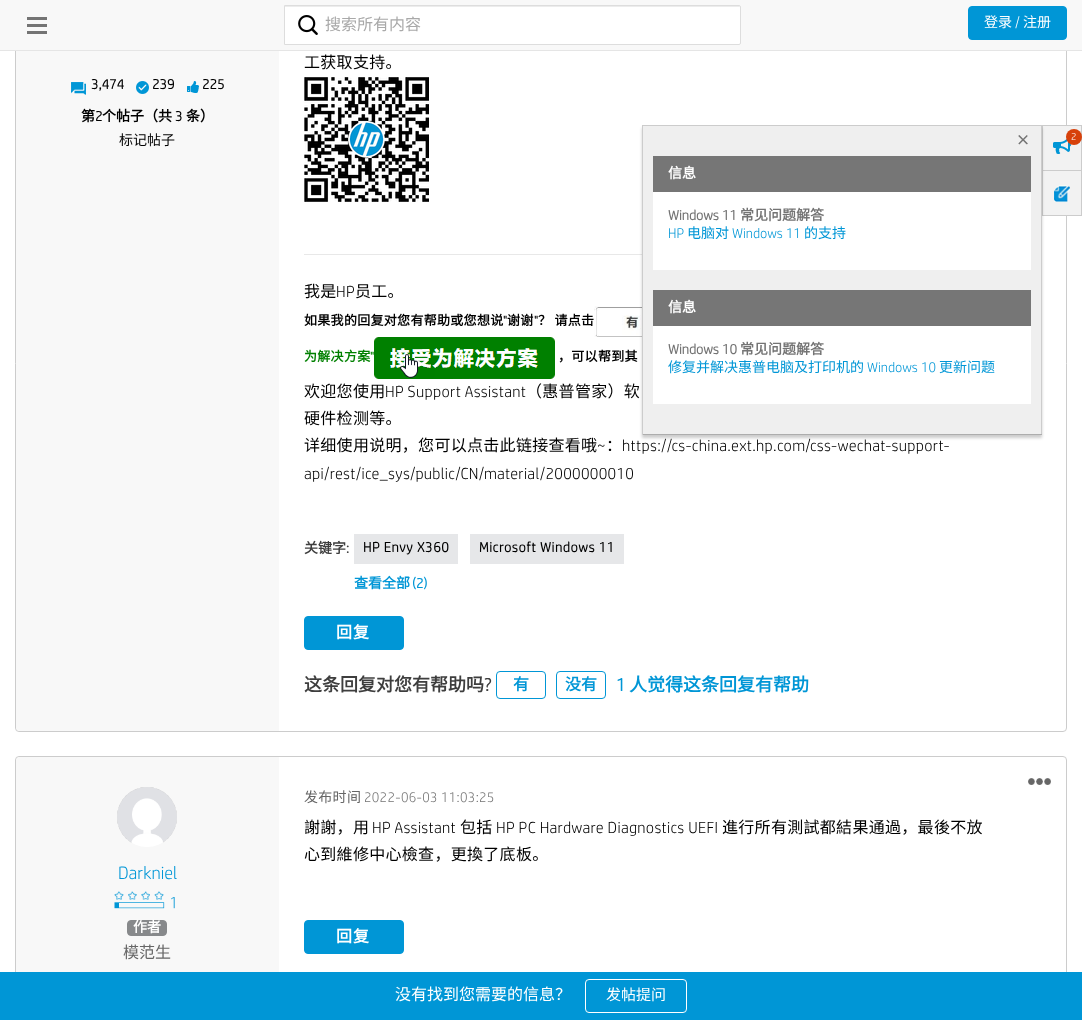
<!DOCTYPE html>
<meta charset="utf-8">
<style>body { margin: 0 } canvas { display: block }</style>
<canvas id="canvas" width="1082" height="1020"></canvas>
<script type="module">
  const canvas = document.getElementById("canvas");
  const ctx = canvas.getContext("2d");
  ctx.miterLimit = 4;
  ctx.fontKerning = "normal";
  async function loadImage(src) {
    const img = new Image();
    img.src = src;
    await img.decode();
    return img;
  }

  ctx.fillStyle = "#ffffff";
  ctx.fillRect(0, 0, 1082, 1020);
  ctx.beginPath();
  ctx.roundRect(15.5, -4.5, 1051, 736, 3.5);
  ctx.strokeStyle = "#cccccc";
  ctx.stroke();
  ctx.fillStyle = "#f8f8f8";
  ctx.beginPath();
  ctx.moveTo(20, -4);
  ctx.lineTo(279, -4);
  ctx.lineTo(279, 731);
  ctx.lineTo(20, 731);
  ctx.bezierCurveTo(18, 731, 16, 729, 16, 727);
  ctx.lineTo(16, 0);
  ctx.bezierCurveTo(16, -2, 18, -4, 20, -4);
  ctx.closePath();
  ctx.fill();
  ctx.fillRect(0, 0, 1082, 50);
  ctx.fillStyle = "#e5e5e5";
  ctx.fillRect(0, 50, 1082, 1);
  ctx.drawImage(await loadImage("img1.png"), 27, 17, 20, 17);
  ctx.fillStyle = "#ffffff";
  ctx.beginPath();
  ctx.roundRect(284, 5, 457, 40, [0, 2, 2, 0]);
  ctx.fill();
  ctx.fillStyle = "#ececec";
  ctx.beginPath();
  ctx.moveTo(285, 7);
  ctx.lineTo(739, 7);
  ctx.bezierCurveTo(740, 7, 740, 7, 740, 8);
  ctx.lineTo(740, 7);
  ctx.lineTo(739, 6);
  ctx.lineTo(285, 6);
  ctx.closePath();
  ctx.fill();
  ctx.beginPath();
  ctx.roundRect(284.5, 5.5, 456, 39, [0, 1.5, 1.5, 0]);
  ctx.strokeStyle = "#dddddd";
  ctx.stroke();
  ctx.drawImage(await loadImage("img2.png"), 298, 15, 20, 20);
  ctx.font = "16px Noto Sans CJK SC";
  ctx.fillStyle = "#a9a9a9";
  ctx.fillText("搜索所有内容", 325, 30);
  ctx.fillStyle = "#0096d6";
  ctx.beginPath();
  ctx.roundRect(968.5, 6.5, 98, 33, 3.5);
  ctx.fill();
  ctx.strokeStyle = "#0096d6";
  ctx.stroke();
  ctx.font = "14px Noto Sans CJK SC";
  ctx.fillStyle = "#ffffff";
  ctx.fillText("登录", 984, 27);
  ctx.font = "300 14px 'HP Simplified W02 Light'";
  ctx.fillText("/", 1015, 27);
  ctx.font = "14px Noto Sans CJK SC";
  ctx.fillText("注册", 1023, 27);
  ctx.fillStyle = "#f2f2f2";
  ctx.fillRect(1043, 126, 38, 89);
  ctx.strokeStyle = "#cccccc";
  ctx.strokeRect(1042.5, 170.5, 39, 45);
  ctx.strokeRect(1042.5, 125.5, 39, 45);
  ctx.fillStyle = "#e8e8e8";
  ctx.fillRect(304, 254, 338, 1);
  ctx.drawImage(await loadImage("img9.png"), 594, 306, 48, 31);
  ctx.fillStyle = "rgba(0, 0, 0, 0.2)";
  ctx.filter = "blur(1.5px)";
  ctx.beginPath();
  ctx.rect(642, 128, 400, 310);
  ctx.fill();
  ctx.filter = "none";
  ctx.fillStyle = "#efefef";
  ctx.fillRect(643, 126, 398, 308);
  ctx.fillStyle = "#cccccc";
  ctx.fillRect(642, 125, 400, 1);
  ctx.fillRect(1041, 125, 1, 310);
  ctx.fillStyle = "#adadad";
  ctx.fillRect(642, 434, 400, 1);
  ctx.fillStyle = "#cccccc";
  ctx.fillRect(642, 125, 1, 310);
  ctx.font = "300 30px 'HP Simplified W02 Light'";
  ctx.fillStyle = "#747474";
  ctx.fillText("×", 1015, 150);
  ctx.fillStyle = "#767676";
  ctx.fillRect(653, 156, 378, 36);
  ctx.font = "bold 14px Noto Sans CJK SC";
  ctx.fillStyle = "#ffffff";
  ctx.fillText("信息", 668, 178);
  ctx.fillRect(653, 192, 378, 78);
  ctx.font = "bold 14px 'HP Simplified W02 Light'";
  ctx.fillStyle = "#747474";
  ctx.fillText("Windows 11", 668, 220);
  ctx.font = "bold 14px Noto Sans CJK SC";
  ctx.fillText("常见问题解答", 740, 220);
  ctx.font = "300 14px 'HP Simplified W02 Light'";
  ctx.fillStyle = "#0096d6";
  ctx.fillText("HP", 668, 238);
  ctx.font = "14px Noto Sans CJK SC";
  ctx.fillText("电脑对", 687, 238);
  ctx.font = "300 14px 'HP Simplified W02 Light'";
  ctx.fillText("Windows 11", 732, 238);
  ctx.font = "14px Noto Sans CJK SC";
  ctx.fillText("的支持", 804, 238);
  ctx.fillStyle = "#767676";
  ctx.fillRect(653, 290, 378, 36);
  ctx.font = "bold 14px Noto Sans CJK SC";
  ctx.fillStyle = "#ffffff";
  ctx.fillText("信息", 668, 312);
  ctx.fillRect(653, 326, 378, 78);
  ctx.font = "bold 14px 'HP Simplified W02 Light'";
  ctx.fillStyle = "#747474";
  ctx.fillText("Windows 10", 668, 354);
  ctx.font = "bold 14px Noto Sans CJK SC";
  ctx.fillText("常见问题解答", 740, 354);
  ctx.font = "14px Noto Sans CJK SC";
  ctx.fillStyle = "#0096d6";
  ctx.fillText("修复并解决惠普电脑及打印机的", 668, 372);
  ctx.font = "300 14px 'HP Simplified W02 Light'";
  ctx.fillText("Windows 10", 867, 372);
  ctx.font = "14px Noto Sans CJK SC";
  ctx.fillText("更新问题", 939, 372);
  ctx.drawImage(await loadImage("img3.png"), 1053, 139, 18, 15);
  ctx.fillStyle = "#d7410b";
  ctx.beginPath();
  ctx.arc(1074, 137, 8, 0, Math.PI * 2);
  ctx.fill();
  ctx.font = "300 10px 'HP Simplified W02 Light'";
  ctx.fillStyle = "#ffffff";
  ctx.fillText("2", 1071, 140);
  ctx.drawImage(await loadImage("img4.png"), 1054, 185, 16, 17);
  ctx.drawImage(await loadImage("img5.png"), 71, 82, 15, 13);
  ctx.font = "bold 14px 'HP Simplified W02 Light'";
  ctx.fillStyle = "#000000";
  ctx.fillText("3,474", 91, 89);
  ctx.drawImage(await loadImage("img6.png"), 136, 81, 13, 13);
  ctx.fillText("239", 152, 89);
  ctx.drawImage(await loadImage("img7.png"), 187, 81, 12, 12);
  ctx.fillText("225", 202, 89);
  ctx.font = "bold 14px Noto Sans CJK SC";
  ctx.fillText("第", 81, 121);
  ctx.font = "bold 14px 'HP Simplified W02 Light'";
  ctx.fillText("2", 95, 121);
  ctx.font = "bold 14px Noto Sans CJK SC";
  ctx.fillText("个帖子（共", 102, 121);
  ctx.font = "bold 14px 'HP Simplified W02 Light'";
  ctx.fillText("3", 175, 121);
  ctx.font = "bold 14px Noto Sans CJK SC";
  ctx.fillText("条）", 186, 121);
  ctx.font = "14px Noto Sans CJK SC";
  ctx.fillText("标记帖子", 119, 145);
  ctx.letterSpacing = "0.3px";
  ctx.font = "16px Noto Sans CJK SC";
  ctx.fillText("工获取支持。", 304, 68);
  ctx.drawImage(await loadImage("img8.png"), 304, 77, 125, 125);
  ctx.fillText("我是", 304, 297);
  ctx.font = "300 16px 'HP Simplified W02 Light'";
  ctx.fillText("HP", 336, 297);
  ctx.font = "16px Noto Sans CJK SC";
  ctx.fillText("员工。", 355, 297);
  ctx.font = "bold 13px Noto Sans CJK SC";
  ctx.fillText("如果我的回复对您有帮助或您想说", 304, 325);
  ctx.font = "bold 13px 'HP Simplified W02 Light'";
  ctx.fillText("\"", 503, 325);
  ctx.font = "bold 13px Noto Sans CJK SC";
  ctx.fillText("谢谢", 507, 325);
  ctx.font = "bold 13px 'HP Simplified W02 Light'";
  ctx.fillText("\"", 534, 325);
  ctx.font = "bold 13px Noto Sans CJK SC";
  ctx.fillText("？ 请点击", 538, 325);
  ctx.fillStyle = "#008000";
  ctx.fillText("为解决方案", 304, 361);
  ctx.font = "bold 13px 'HP Simplified W02 Light'";
  ctx.fillText("\"", 370, 361);
  ctx.drawImage(await loadImage("img10.png"), 374, 337, 181, 42);
  ctx.font = "bold 13px Noto Sans CJK SC";
  ctx.fillStyle = "#000000";
  ctx.fillText("，可以帮到其", 558, 361);
  ctx.font = "16px Noto Sans CJK SC";
  ctx.fillText("欢迎您使用", 304, 397);
  ctx.font = "300 16px 'HP Simplified W02 Light'";
  ctx.fillText("HP Support Assistant", 385, 397);
  ctx.font = "16px Noto Sans CJK SC";
  ctx.fillText("（惠普管家）软", 526, 397);
  ctx.fillText("硬件检测等。", 304, 424);
  ctx.fillText("详细使用说明，您可以点击此链接查看哦", 304, 451);
  ctx.font = "300 16px 'HP Simplified W02 Light'";
  ctx.fillText("~", 597, 451);
  ctx.font = "16px Noto Sans CJK SC";
  ctx.fillText("：", 606, 451);
  ctx.font = "300 16px 'HP Simplified W02 Light'";
  ctx.fillText("https://cs-china.ext.hp.com/css-wechat-support-", 622, 451);
  ctx.fillText("api/rest/ice_sys/public/CN/material/2000000010", 304, 479);
  ctx.letterSpacing = "0px";
  ctx.font = "bold 14px Noto Sans CJK SC";
  ctx.fillStyle = "#3e3e3e";
  ctx.fillText("关键字", 304, 553);
  ctx.font = "bold 14px 'HP Simplified W02 Light'";
  ctx.fillText(":", 346, 553);
  ctx.fillStyle = "#e6e7e9";
  ctx.fillRect(354, 534, 104, 30);
  ctx.letterSpacing = "0.6px";
  ctx.fillStyle = "#000000";
  ctx.fillText("HP Envy X360", 363, 552);
  ctx.fillStyle = "#e6e7e9";
  ctx.fillRect(470, 534, 154, 30);
  ctx.fillStyle = "#000000";
  ctx.fillText("Microsoft Windows 11", 479, 552);
  ctx.letterSpacing = "0px";
  ctx.font = "bold 14px Noto Sans CJK SC";
  ctx.fillStyle = "#0096d6";
  ctx.fillText("查看全部", 354, 588);
  ctx.font = "bold 14px 'HP Simplified W02 Light'";
  ctx.fillText("(2)", 412, 588);
  ctx.beginPath();
  ctx.roundRect(304.5, 616.5, 99, 33, 3.5);
  ctx.fill();
  ctx.strokeStyle = "#0096d6";
  ctx.stroke();
  ctx.letterSpacing = "1px";
  ctx.font = "bold 16px Noto Sans CJK SC";
  ctx.fillStyle = "#ffffff";
  ctx.fillText("回复", 336, 638);
  ctx.letterSpacing = "0px";
  ctx.font = "bold 18px Noto Sans CJK SC";
  ctx.fillStyle = "#3e3e3e";
  ctx.fillText("这条回复对您有帮助吗", 304, 691);
  ctx.font = "bold 18px 'HP Simplified W02 Light'";
  ctx.fillText("?", 484, 691);
  ctx.beginPath();
  ctx.roundRect(496.5, 671.5, 49, 27, 3.5);
  ctx.stroke();
  ctx.font = "bold 16px Noto Sans CJK SC";
  ctx.fillStyle = "#0096d6";
  ctx.fillText("有", 513, 690);
  ctx.beginPath();
  ctx.roundRect(556.5, 671.5, 49, 27, 3.5);
  ctx.stroke();
  ctx.fillText("没有", 565, 690);
  ctx.font = "bold 18px 'HP Simplified W02 Light'";
  ctx.fillText("1", 616, 691);
  ctx.font = "bold 18px Noto Sans CJK SC";
  ctx.fillText("人觉得这条回复有帮助", 629, 691);
  ctx.beginPath();
  ctx.roundRect(15.5, 756.5, 1051, 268, 3.5);
  ctx.strokeStyle = "#cccccc";
  ctx.stroke();
  ctx.fillStyle = "#f8f8f8";
  ctx.beginPath();
  ctx.moveTo(20, 757);
  ctx.lineTo(279, 757);
  ctx.lineTo(279, 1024);
  ctx.lineTo(20, 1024);
  ctx.bezierCurveTo(18, 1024, 16, 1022, 16, 1020);
  ctx.lineTo(16, 761);
  ctx.bezierCurveTo(16, 759, 18, 757, 20, 757);
  ctx.closePath();
  ctx.fill();
  ctx.drawImage(await loadImage("img11.png"), 117, 787, 60, 60);
  ctx.font = "300 18px 'HP Simplified W02 Light'";
  ctx.fillStyle = "#0096d6";
  ctx.fillText("Darkniel", 118, 879);
  ctx.drawImage(await loadImage("img12.png"), 114, 891, 61, 18);
  ctx.fillStyle = "#87898b";
  ctx.beginPath();
  ctx.roundRect(127.5, 920.5, 39, 15, 3.5);
  ctx.fill();
  ctx.strokeStyle = "#87898b";
  ctx.stroke();
  ctx.font = "bold 14px Noto Sans CJK SC";
  ctx.fillStyle = "#ffffff";
  ctx.fillText("作者", 133, 932);
  ctx.font = "16px Noto Sans CJK SC";
  ctx.fillStyle = "#666666";
  ctx.fillText("模范生", 123, 958);
  ctx.drawImage(await loadImage("img13.png"), 1028, 778, 23, 7);
  ctx.letterSpacing = "0.3px";
  ctx.font = "14px Noto Sans CJK SC";
  ctx.fillText("发布时间", 304, 802);
  ctx.font = "300 14px 'HP Simplified W02 Light'";
  ctx.fillStyle = "#747474";
  ctx.fillText("2022-06-03 11:03:25", 364, 802);
  ctx.font = "16px Noto Sans CJK SC";
  ctx.fillStyle = "#000000";
  ctx.fillText("謝謝，用", 304, 833);
  ctx.font = "300 16px 'HP Simplified W02 Light'";
  ctx.fillText("HP Assistant", 372, 833);
  ctx.font = "16px Noto Sans CJK SC";
  ctx.fillText("包括", 460, 833);
  ctx.font = "300 16px 'HP Simplified W02 Light'";
  ctx.fillText("HP PC Hardware Diagnostics UEFI", 496, 833);
  ctx.font = "16px Noto Sans CJK SC";
  ctx.fillText("進行所有測試都結果通過，最後不放", 722, 833);
  ctx.fillText("心到維修中心檢查，更換了底板。", 304, 860);
  ctx.fillStyle = "#0096d6";
  ctx.beginPath();
  ctx.roundRect(304.5, 920.5, 99, 33, 3.5);
  ctx.fill();
  ctx.strokeStyle = "#0096d6";
  ctx.stroke();
  ctx.letterSpacing = "1px";
  ctx.font = "bold 16px Noto Sans CJK SC";
  ctx.fillStyle = "#ffffff";
  ctx.fillText("回复", 336, 942);
  ctx.fillStyle = "#0096d6";
  ctx.fillRect(0, 972, 1082, 48);
  ctx.letterSpacing = "0px";
  ctx.font = "16px Noto Sans CJK SC";
  ctx.fillStyle = "#ffffff";
  ctx.fillText("没有找到您需要的信息？", 395, 1000);
  ctx.beginPath();
  ctx.roundRect(585.5, 979.5, 101, 33, 3.5);
  ctx.strokeStyle = "#ffffff";
  ctx.stroke();
  ctx.font = "15px Noto Sans CJK SC";
  ctx.fillText("发帖提问", 606, 1000);
</script>
